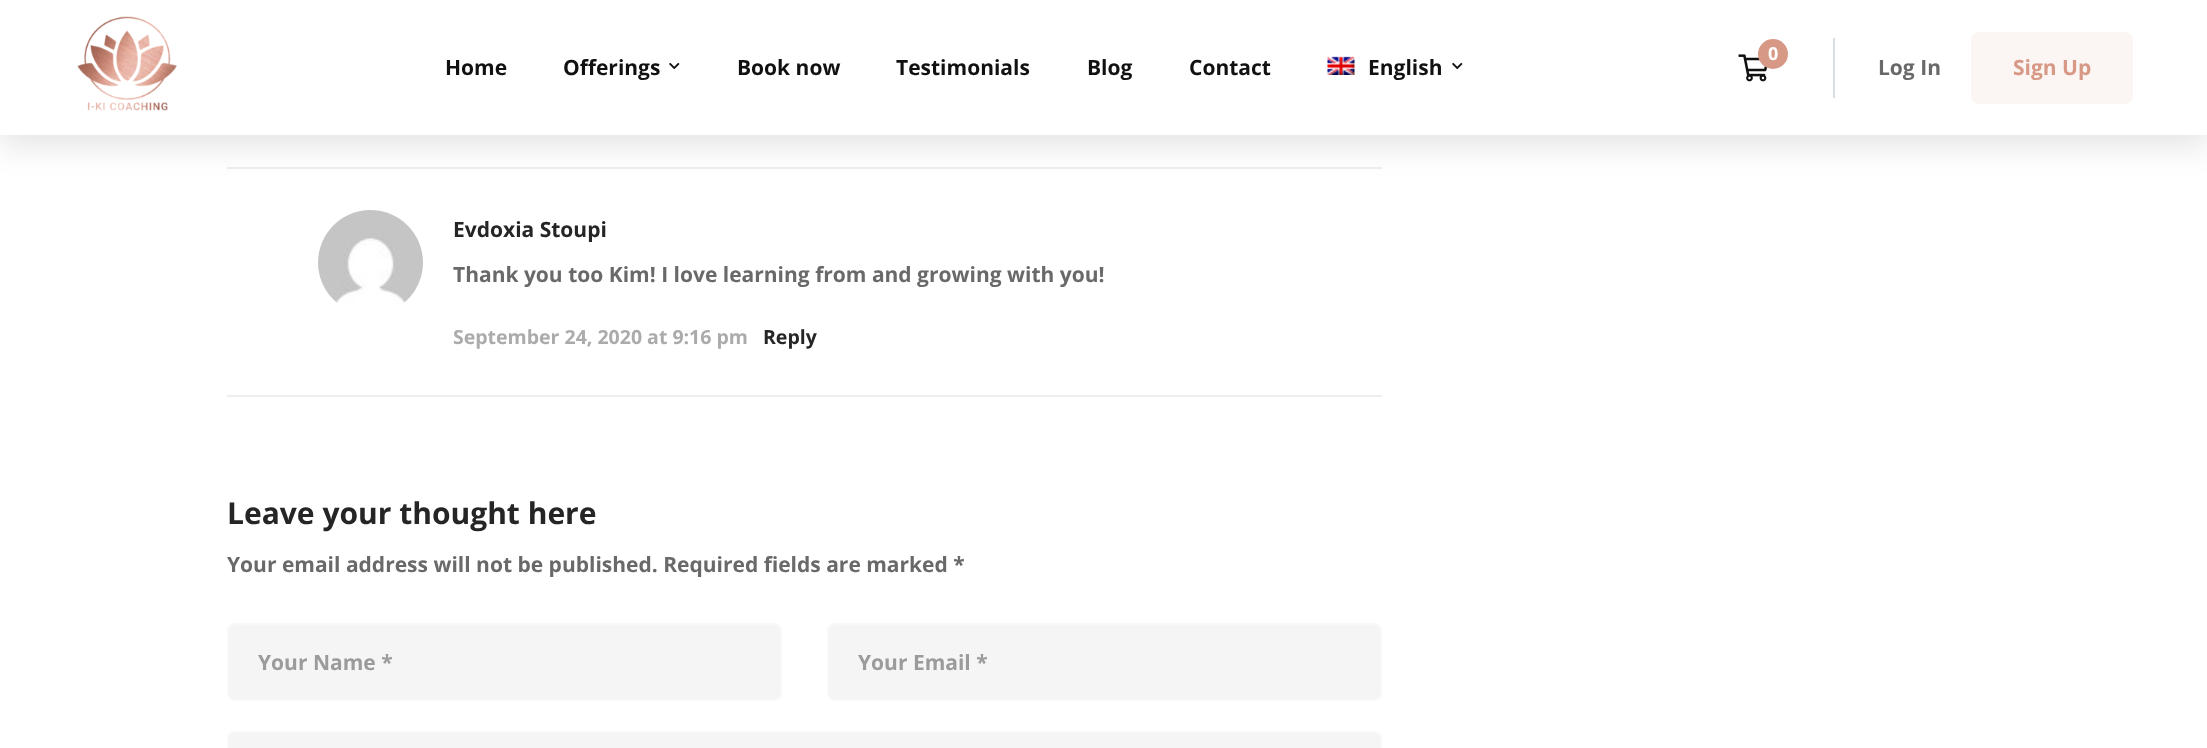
<!DOCTYPE html>
<meta charset="utf-8">
<style>body { margin: 0 } canvas { display: block }</style>
<canvas id="canvas" width="2207" height="748"></canvas>
<script type="module">
  const canvas = document.getElementById("canvas");
  const ctx = canvas.getContext("2d");
  ctx.miterLimit = 4;
  ctx.fontKerning = "normal";
  async function loadImage(src) {
    const img = new Image();
    img.src = src;
    await img.decode();
    return img;
  }

  ctx.fillStyle = "#ffffff";
  ctx.fillRect(0, 0, 2207, 748);
  ctx.fillStyle = "#eeeeee";
  ctx.fillRect(227, 167, 1155, 2);
  ctx.fillStyle = "rgba(0, 0, 0, 0.1)";
  ctx.filter = "blur(15px)";
  ctx.beginPath();
  ctx.rect(0, 12, 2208, 135);
  ctx.fill();
  ctx.filter = "none";
  ctx.fillStyle = "#ffffff";
  ctx.fillRect(0, 0, 2207, 135);
  ctx.drawImage(await loadImage("img1.png"), 77, 16, 100, 95);
  ctx.font = "bold 21px Open Sans";
  ctx.fillStyle = "#111111";
  ctx.fillText("Home", 445, 75);
  ctx.fillText("Offerings", 563, 75);
  ctx.drawImage(await loadImage("img2.png"), 669, 62, 11, 8);
  ctx.fillText("Book now", 737, 75);
  ctx.fillText("Testimonials", 896, 75);
  ctx.fillText("Blog", 1087, 75);
  ctx.fillText("Contact", 1189, 75);
  ctx.drawImage(await loadImage("img3.png"), 1327, 56, 28, 19);
  ctx.fillText("English", 1368, 75);
  ctx.drawImage(await loadImage("img2.png"), 1452, 62, 11, 8);
  ctx.drawImage(await loadImage("img4.png"), 1738, 54, 30, 28);
  ctx.fillStyle = "#d79986";
  ctx.beginPath();
  ctx.arc(1773, 54, 15, 0, Math.PI * 2);
  ctx.fill();
  ctx.font = "bold 18px Open Sans";
  ctx.fillStyle = "#ffffff";
  ctx.fillText("0", 1768, 60);
  ctx.fillStyle = "#d9dee3";
  ctx.fillRect(1833, 38, 2, 60);
  ctx.font = "bold 21px Open Sans";
  ctx.fillStyle = "#696969";
  ctx.fillText("Log In", 1878, 75);
  ctx.fillStyle = "#fbf5f3";
  ctx.beginPath();
  ctx.roundRect(1971, 32, 162, 72, 8);
  ctx.fill();
  ctx.fillStyle = "#d79986";
  ctx.fillText("Sign Up", 2013, 75);
  ctx.fillStyle = "#eeeeee";
  ctx.fillRect(227, 395, 1155, 2);
  ctx.drawImage(await loadImage("img5.png"), 318, 210, 105, 94);
  ctx.fillStyle = "#252525";
  ctx.fillText("Evdoxia Stoupi", 453, 237);
  ctx.fillStyle = "#696969";
  ctx.fillText("Thank you too Kim! I love learning from and growing with you!", 453, 282);
  ctx.font = "bold 19.5px Open Sans";
  ctx.fillStyle = "#ababab";
  ctx.fillText("September 24, 2020 at 9:16 pm", 453, 344);
  ctx.fillStyle = "#252525";
  ctx.fillText("Reply", 763, 344);
  ctx.font = "bold 30px Open Sans";
  ctx.fillText("Leave your thought here", 227, 524);
  ctx.font = "bold 21px Open Sans";
  ctx.fillStyle = "#696969";
  ctx.fillText("Your email address will not be published. Required fields are marked *", 227, 572);
  ctx.fillStyle = "#f5f5f5";
  ctx.beginPath();
  ctx.roundRect(228, 624, 553, 76, 7);
  ctx.fill();
  ctx.strokeStyle = "#f8f8f8";
  ctx.lineWidth = 2;
  ctx.stroke();
  ctx.fillStyle = "#9b9b9b";
  ctx.fillText("Your Name *", 258, 670);
  ctx.fillStyle = "#f5f5f5";
  ctx.beginPath();
  ctx.roundRect(828, 624, 553, 76, 7);
  ctx.fill();
  ctx.stroke();
  ctx.fillStyle = "#9b9b9b";
  ctx.fillText("Your Email *", 858, 670);
  ctx.fillStyle = "#f5f5f5";
  ctx.beginPath();
  ctx.roundRect(228, 732, 1153, 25, 7);
  ctx.fill();
  ctx.stroke();
</script>
